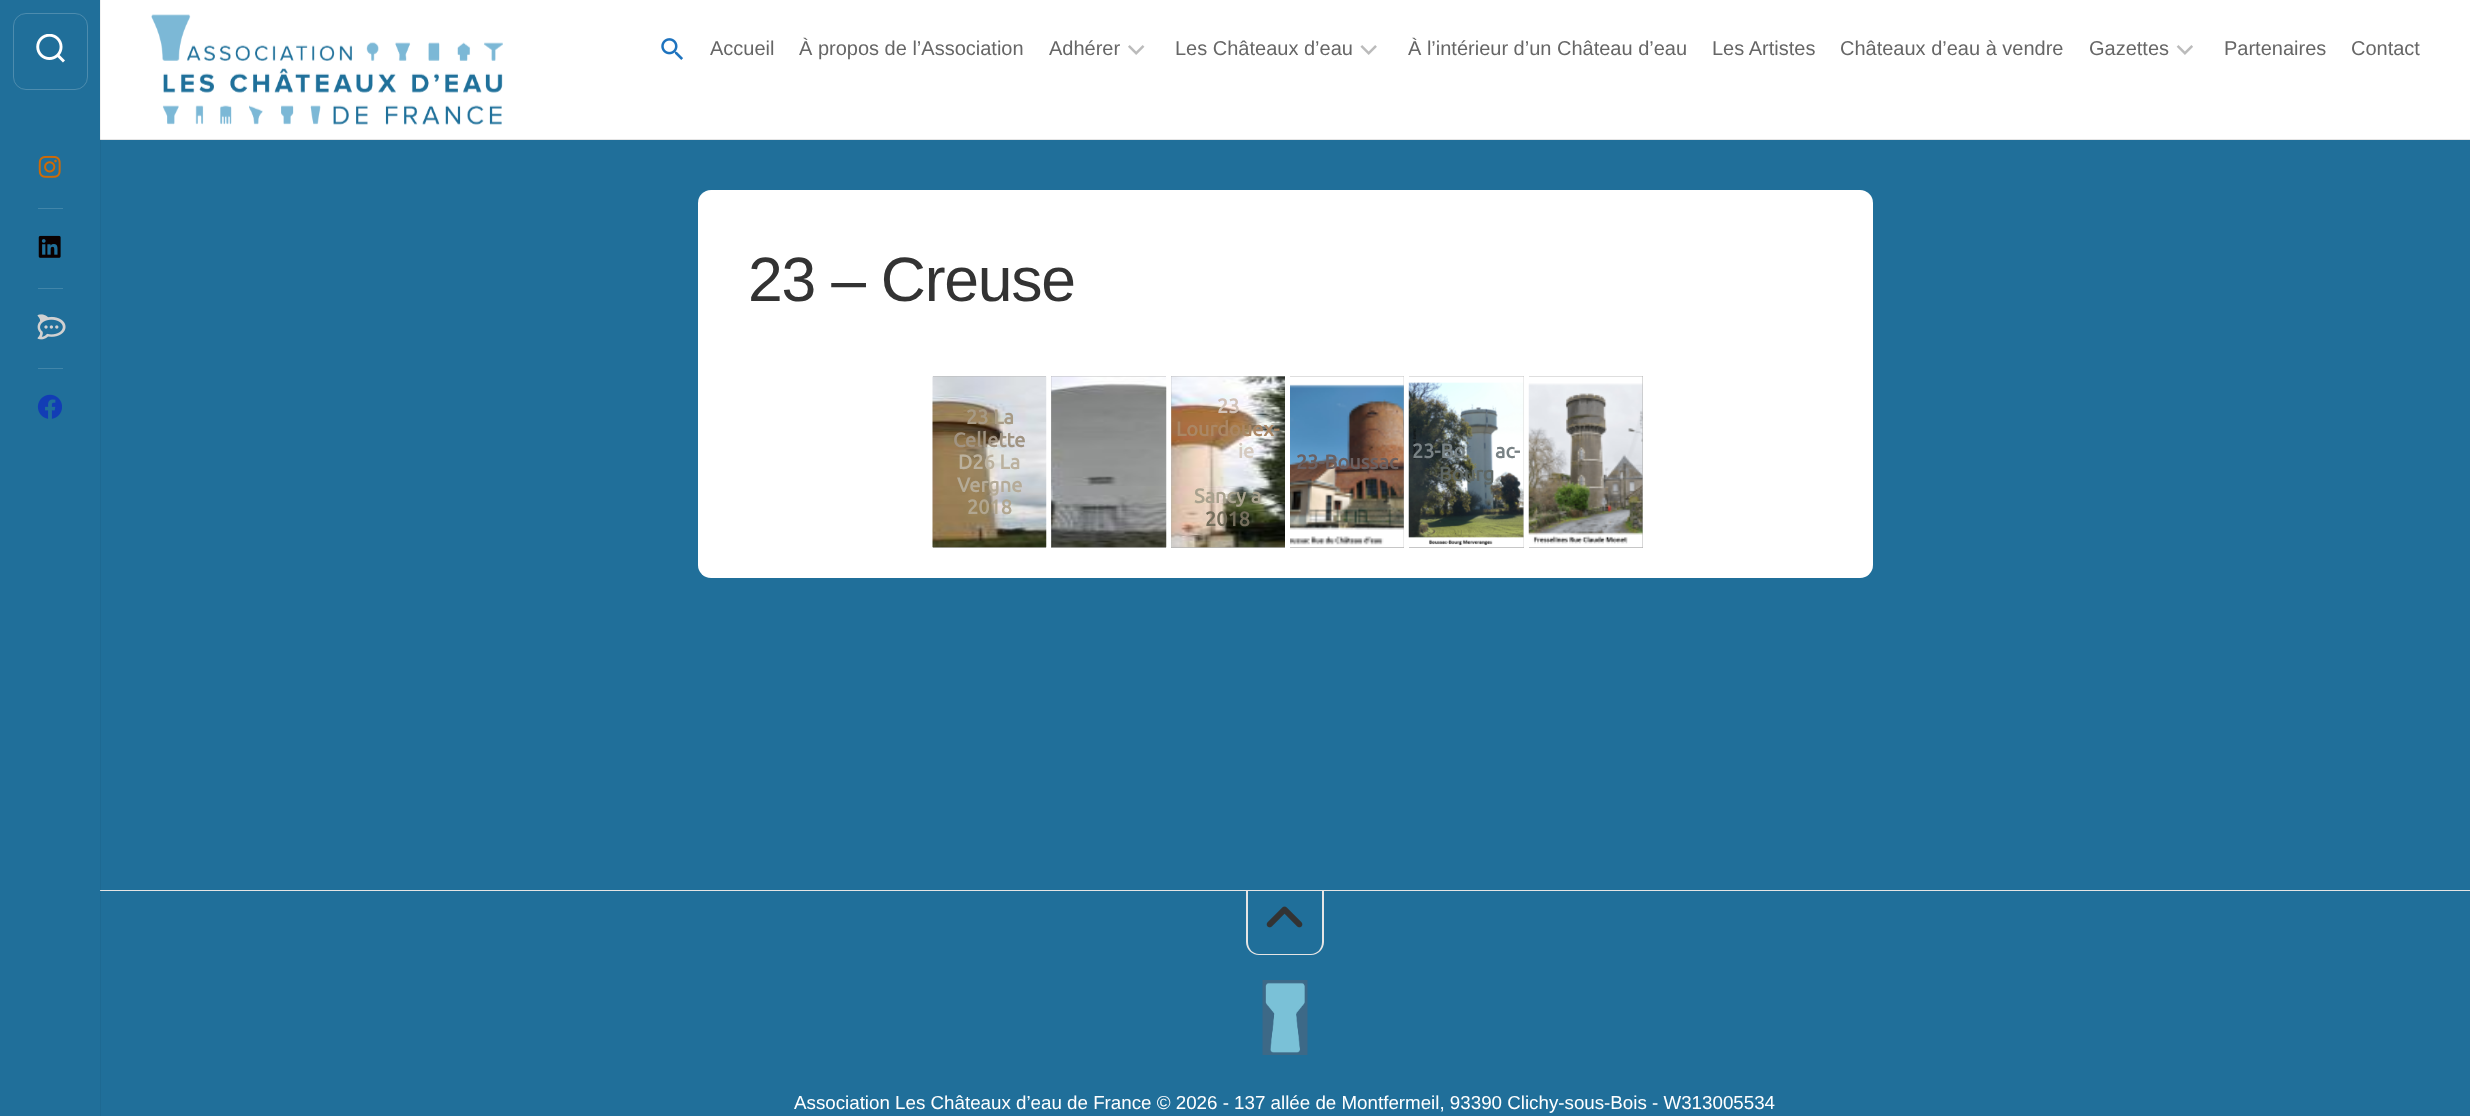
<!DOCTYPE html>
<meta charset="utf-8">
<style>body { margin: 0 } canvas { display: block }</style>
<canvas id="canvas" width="2470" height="1116"></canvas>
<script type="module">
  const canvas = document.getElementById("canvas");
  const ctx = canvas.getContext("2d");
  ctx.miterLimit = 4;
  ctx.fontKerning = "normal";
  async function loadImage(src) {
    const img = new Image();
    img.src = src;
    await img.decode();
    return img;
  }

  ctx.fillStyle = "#206f9a";
  ctx.fillRect(0, 0, 2470, 1116);
  ctx.fillStyle = "#ffffff";
  ctx.fillRect(100, 0, 2370, 139);
  ctx.fillStyle = "#e5e5e5";
  ctx.fillRect(100, 139, 2370, 1);
  ctx.fillRect(100, 890, 2370, 1);
  ctx.fillStyle = "rgba(0, 0, 0, 0.05)";
  ctx.fillRect(100, 0, 1, 1116);
  ctx.beginPath();
  ctx.roundRect(13.5, 13.5, 74, 76, 12.5);
  ctx.strokeStyle = "#4d8cae";
  ctx.stroke();
  ctx.drawImage(await loadImage("img1.png"), 36, 34, 29, 29);
  ctx.drawImage(await loadImage("img2.png"), 38, 155, 23, 23);
  ctx.fillStyle = "#4185a9";
  ctx.fillRect(38, 208, 25, 1);
  ctx.drawImage(await loadImage("img3.png"), 38, 235, 23, 23);
  ctx.fillRect(38, 288, 25, 1);
  ctx.drawImage(await loadImage("img4.png"), 37, 314, 29, 26);
  ctx.fillRect(38, 368, 25, 1);
  ctx.drawImage(await loadImage("img5.png"), 37, 394, 25, 25);
  ctx.drawImage(await loadImage("img6.png"), 151, 14, 352, 111);
  ctx.drawImage(await loadImage("img7.png"), 661, 38, 22, 22);
  ctx.font = "20px Liberation Sans";
  ctx.fillStyle = "#666666";
  ctx.fillText("Accueil", 710, 55);
  ctx.fillText("À propos de l’Association", 799, 55);
  ctx.fillText("Adhérer", 1049, 55);
  ctx.drawImage(await loadImage("img8.png"), 1128, 45, 17, 10);
  ctx.fillText("Les Châteaux d’eau", 1175, 55);
  ctx.drawImage(await loadImage("img9.png"), 1360, 45, 17, 10);
  ctx.fillText("À l’intérieur d’un Château d’eau", 1408, 55);
  ctx.fillText("Les Artistes", 1712, 55);
  ctx.fillText("Châteaux d’eau à vendre", 1840, 55);
  ctx.fillText("Gazettes", 2089, 55);
  ctx.drawImage(await loadImage("img10.png"), 2176, 45, 17, 10);
  ctx.fillText("Partenaires", 2224, 55);
  ctx.fillText("Contact", 2351, 55);
  ctx.fillStyle = "#ffffff";
  ctx.beginPath();
  ctx.roundRect(698, 190, 1175, 388, 13);
  ctx.fill();
  ctx.letterSpacing = "-1.25px";
  ctx.font = "62.5px Liberation Sans";
  ctx.fillStyle = "#333333";
  ctx.fillText("23 – Creuse", 748, 301);
  ctx.fillStyle = "#b3b3b3";
  ctx.fillRect(933, 376, 113, 172);
  ctx.drawImage(await loadImage("img11.png"), 932, 376, 115, 172);
  ctx.letterSpacing = "0px";
  ctx.font = "bold 20px Ubuntu";
  ctx.fillStyle = "#a79a85";
  ctx.fillText("23 La", 966, 424);
  ctx.fillStyle = "#a09382";
  ctx.fillText("Cellette", 953, 447);
  ctx.fillStyle = "#bbb19e";
  ctx.fillText("D26 La", 958, 469);
  ctx.fillStyle = "#b5ab98";
  ctx.fillText("Vergne", 957, 492);
  ctx.fillStyle = "#b1a690";
  ctx.fillText("2018", 967, 514);
  ctx.fillStyle = "#b3b3b3";
  ctx.fillRect(1051, 376, 115, 172);
  ctx.drawImage(await loadImage("img12.png"), 1051, 376, 116, 172);
  ctx.fillRect(1171, 376, 114, 172);
  ctx.drawImage(await loadImage("img13.png"), 1171, 376, 114, 172);
  ctx.fillStyle = "#d1c2b8";
  ctx.fillText("23", 1217, 413);
  ctx.fillStyle = "#aa8765";
  ctx.fillText("Lourdouex-", 1176, 436);
  ctx.fillStyle = "#d5cac0";
  ctx.fillText("ie", 1238, 458);
  ctx.fillStyle = "#a8a18e";
  ctx.fillText("Sancy a", 1194, 503);
  ctx.fillStyle = "#746e5c";
  ctx.fillText("2018", 1205, 526);
  ctx.fillStyle = "#b3b3b3";
  ctx.fillRect(1290, 376, 114, 172);
  ctx.drawImage(await loadImage("img14.png"), 1290, 376, 114, 172);
  ctx.fillStyle = "#6a6061";
  ctx.fillText("23-Boussac", 1296, 469);
  ctx.fillStyle = "#b3b3b3";
  ctx.fillRect(1409, 376, 115, 172);
  ctx.drawImage(await loadImage("img15.png"), 1408, 376, 116, 172);
  ctx.fillStyle = "#798285";
  ctx.fillText("23-Bo", 1412, 458);
  ctx.fillText("ac-", 1495, 458);
  ctx.fillStyle = "#5f6764";
  ctx.fillText("Bourg", 1439, 481);
  ctx.fillStyle = "#b3b3b3";
  ctx.fillRect(1529, 376, 114, 172);
  ctx.drawImage(await loadImage("img16.png"), 1528, 376, 115, 172);
  ctx.fillStyle = "#e5e5e5";
  ctx.beginPath();
  ctx.moveTo(1246, 891);
  ctx.lineTo(1324, 891);
  ctx.lineTo(1324, 942);
  ctx.bezierCurveTo(1324, 949, 1318, 955, 1311, 955);
  ctx.lineTo(1259, 955);
  ctx.bezierCurveTo(1252, 955, 1246, 949, 1246, 942);
  ctx.closePath();
  ctx.moveTo(1248, 891);
  ctx.lineTo(1322, 891);
  ctx.lineTo(1322, 942);
  ctx.bezierCurveTo(1322, 949, 1317, 954, 1311, 954);
  ctx.lineTo(1259, 954);
  ctx.bezierCurveTo(1253, 954, 1248, 949, 1248, 942);
  ctx.closePath();
  ctx.fill("evenodd");
  ctx.drawImage(await loadImage("img17.png"), 1266, 906, 37, 22);
  ctx.drawImage(await loadImage("img18.png"), 1262, 980, 46, 75);
  ctx.font = "18.75px Liberation Sans";
  ctx.fillStyle = "#ffffff";
  ctx.fillText("Association Les Châteaux d’eau de France © 2026 - 137 allée de Montfermeil, 93390 Clichy-sous-Bois - W313005534", 794, 1109);
</script>
